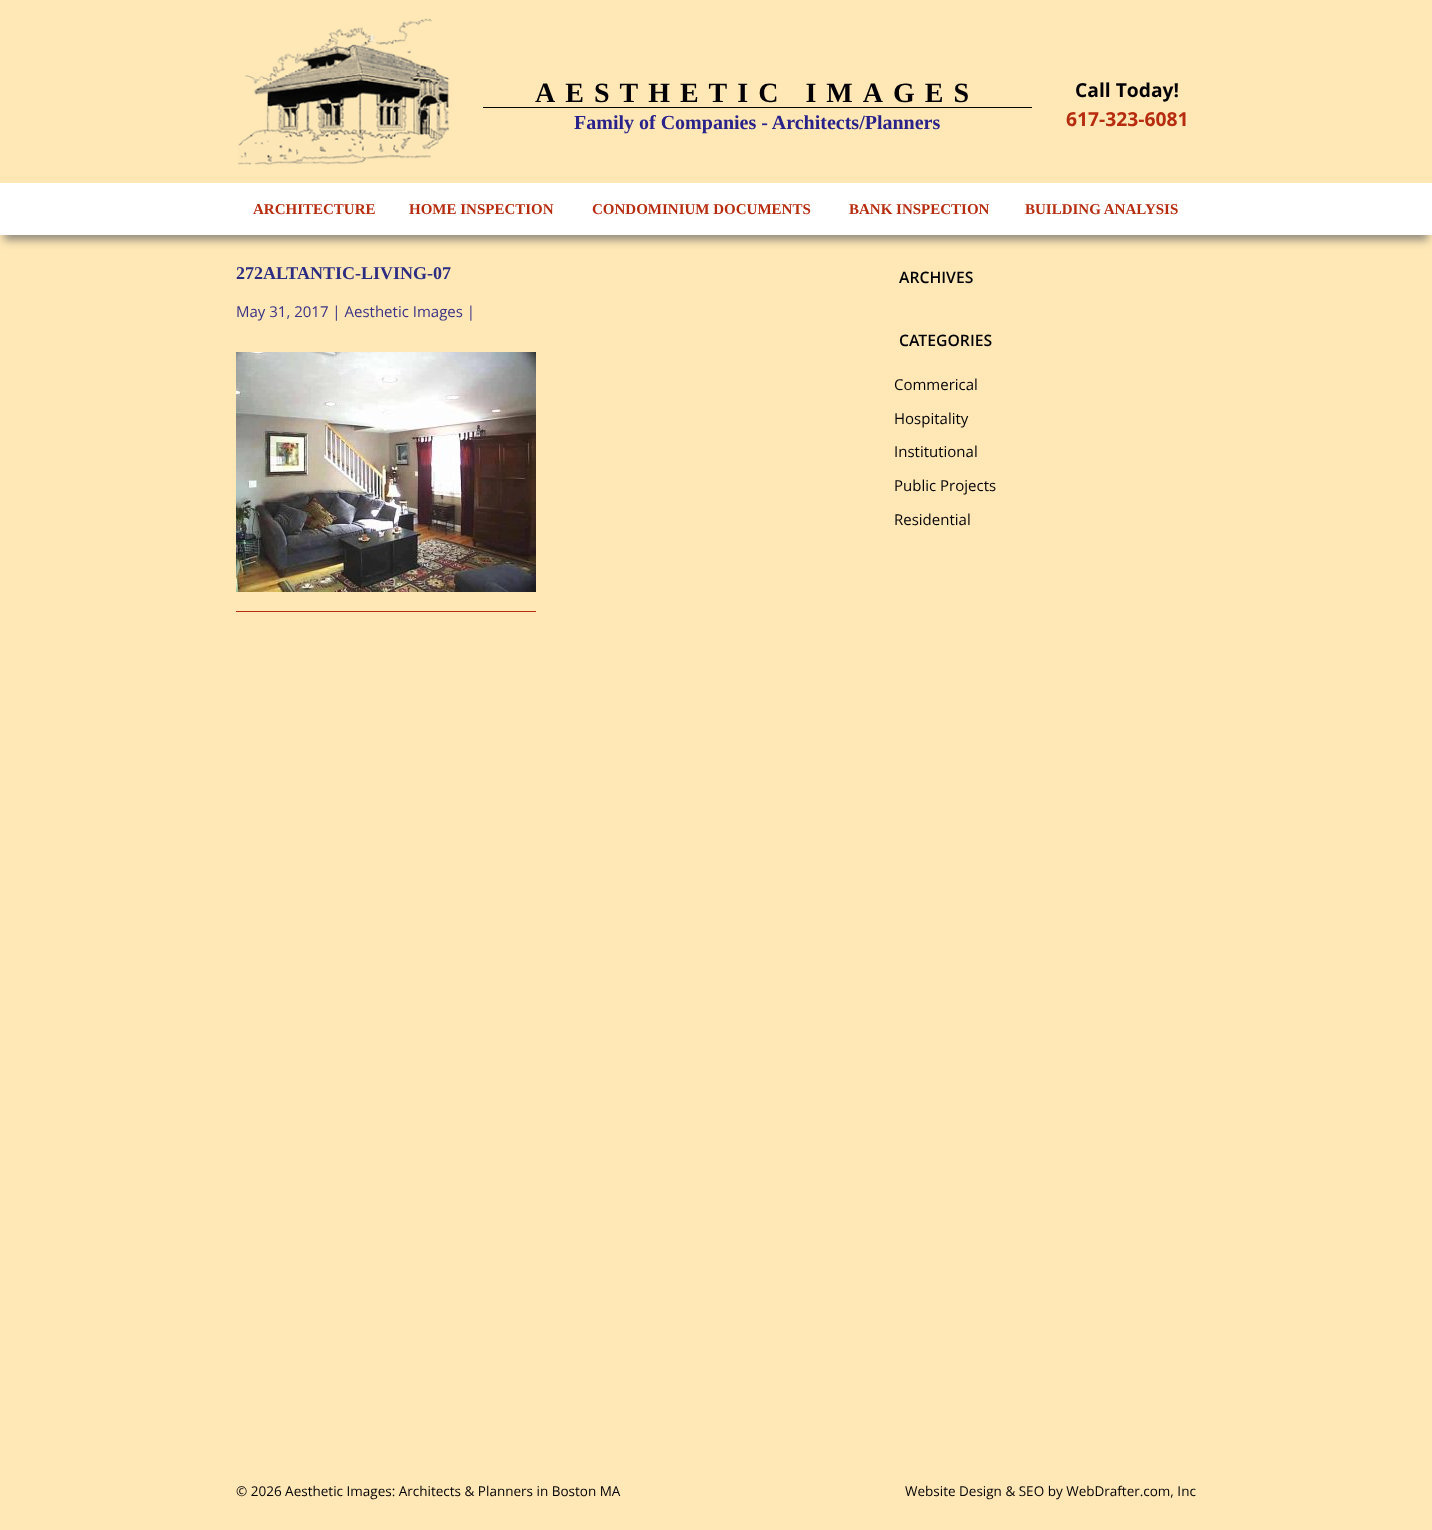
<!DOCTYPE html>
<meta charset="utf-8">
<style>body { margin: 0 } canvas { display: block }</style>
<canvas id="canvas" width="1432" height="1530"></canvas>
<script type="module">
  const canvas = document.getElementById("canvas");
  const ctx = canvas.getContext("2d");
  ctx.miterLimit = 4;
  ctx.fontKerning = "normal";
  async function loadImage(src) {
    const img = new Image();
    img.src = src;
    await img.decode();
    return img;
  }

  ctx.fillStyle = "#ffe8b6";
  ctx.fillRect(0, 0, 1432, 1530);
  ctx.drawImage(await loadImage("img1.png"), 238, 18, 212, 147);
  ctx.fillStyle = "#000000";
  ctx.fillRect(483, 107, 549, 1);
  ctx.letterSpacing = "10px";
  ctx.font = "bold 28px Liberation Serif";
  ctx.fillStyle = "#020005";
  ctx.fillText("AESTHETIC IMAGES", 535, 102);
  ctx.letterSpacing = "0px";
  ctx.font = "bold 20px Liberation Serif";
  ctx.fillStyle = "#29228a";
  ctx.fillText("Family of Companies - Architects/Planners", 574, 129);
  ctx.font = "bold 19.25px Open Sans";
  ctx.fillStyle = "#020005";
  ctx.fillText("Call Today!", 1075, 97);
  ctx.fillStyle = "#b72b0e";
  ctx.fillText("617-323-6081", 1066, 126);
  ctx.fillStyle = "rgba(100, 100, 100, 0.7)";
  ctx.filter = "blur(4.5px)";
  ctx.beginPath();
  ctx.rect(4, 196, 1424, 44);
  ctx.fill();
  ctx.filter = "none";
  ctx.fillStyle = "#ffffff";
  ctx.fillRect(0, 183, 1432, 52);
  ctx.font = "bold 15px Liberation Serif";
  ctx.fillStyle = "#b72b0e";
  ctx.fillText("ARCHITECTURE", 253, 214);
  ctx.fillText("HOME INSPECTION", 409, 214);
  ctx.fillText("CONDOMINIUM DOCUMENTS", 592, 214);
  ctx.fillText("BANK INSPECTION", 849, 214);
  ctx.fillText("BUILDING ANALYSIS", 1025, 214);
  ctx.font = "bold 18px Liberation Serif";
  ctx.fillStyle = "#2c2c83";
  ctx.fillText("272ALTANTIC-LIVING-07", 236, 279);
  ctx.font = "15px Open Sans";
  ctx.fillStyle = "#383187";
  ctx.fillText("May 31, 2017 | Aesthetic Images |", 236, 317);
  ctx.drawImage(await loadImage("img2.png"), 236, 352, 300, 240);
  ctx.fillStyle = "#b72b0e";
  ctx.fillRect(236, 611, 300, 1);
  ctx.font = "600 15.75px Open Sans";
  ctx.fillStyle = "#020005";
  ctx.fillText("ARCHIVES", 899, 283);
  ctx.fillText("CATEGORIES", 899, 346);
  ctx.font = "15px Open Sans";
  ctx.fillText("Commerical", 894, 390);
  ctx.fillText("Hospitality", 894, 424);
  ctx.fillText("Institutional", 894, 457);
  ctx.fillText("Public Projects", 894, 491);
  ctx.fillText("Residential", 894, 525);
  ctx.font = "13.5px Open Sans";
  ctx.fillText("© 2026 Aesthetic Images: Architects & Planners in Boston MA", 236, 1496);
  ctx.fillText("Website Design & SEO by WebDrafter.com, Inc", 905, 1496);
</script>
